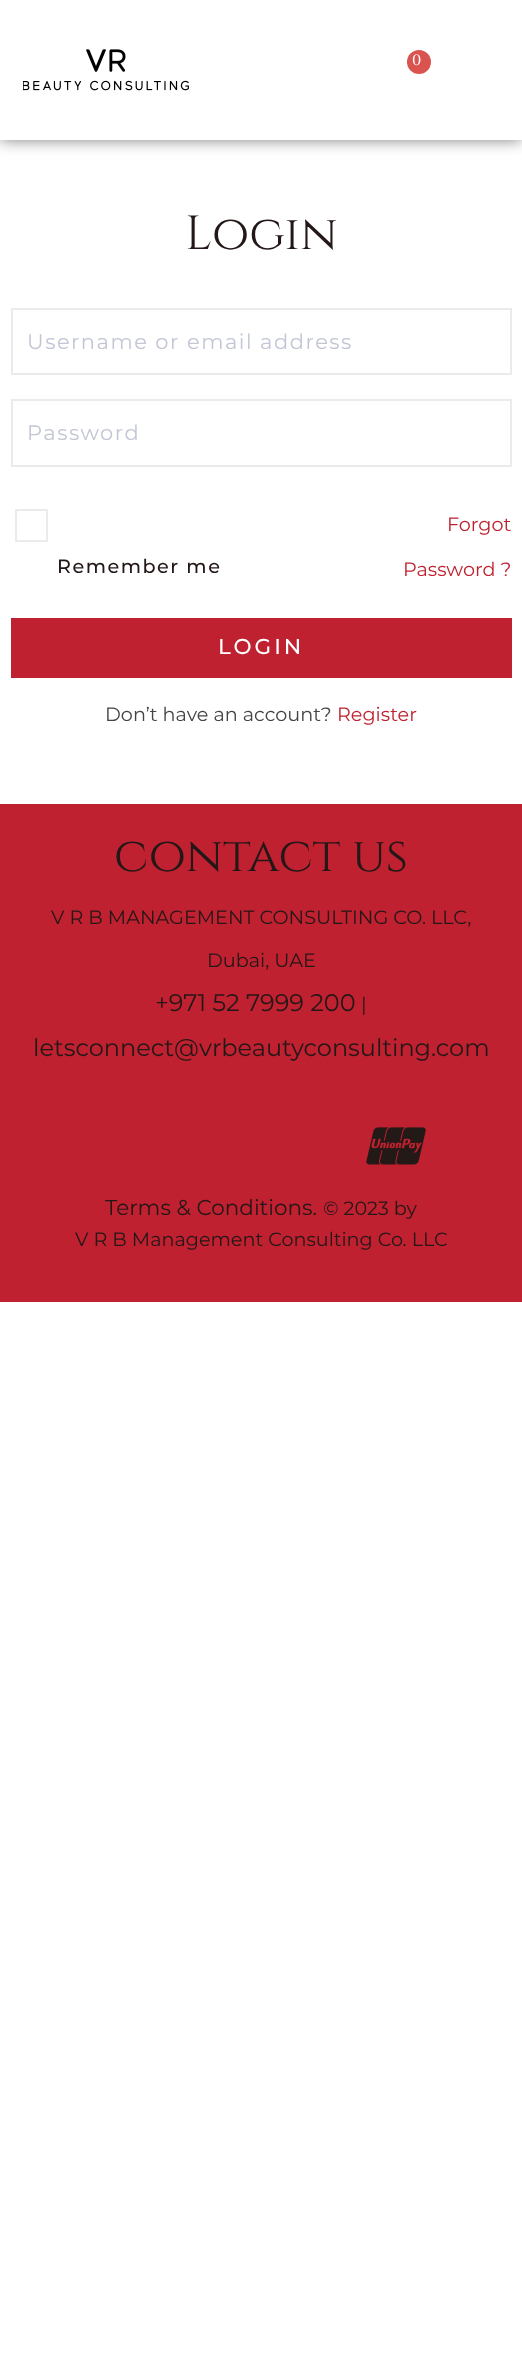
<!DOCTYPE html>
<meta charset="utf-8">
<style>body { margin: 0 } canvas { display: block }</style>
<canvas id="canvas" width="522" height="2364"></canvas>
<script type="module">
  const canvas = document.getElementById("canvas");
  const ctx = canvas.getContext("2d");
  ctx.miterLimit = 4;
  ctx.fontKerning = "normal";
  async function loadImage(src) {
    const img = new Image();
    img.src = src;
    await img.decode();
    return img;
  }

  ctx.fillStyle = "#ffffff";
  ctx.fillRect(0, 0, 522, 2364);
  ctx.save();
  ctx.beginPath();
  ctx.moveTo(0, 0);
  ctx.lineTo(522, 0);
  ctx.lineTo(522, 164);
  ctx.lineTo(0, 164);
  ctx.closePath();
  ctx.moveTo(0, 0);
  ctx.lineTo(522, 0);
  ctx.lineTo(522, 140);
  ctx.lineTo(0, 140);
  ctx.closePath();
  ctx.clip("evenodd");
  ctx.fillStyle = "rgba(0, 0, 0, 0.5)";
  ctx.filter = "blur(7.5px)";
  ctx.beginPath();
  ctx.rect(0, 0, 522, 140);
  ctx.fill();
  ctx.filter = "none";
  ctx.restore();
  ctx.drawImage(await loadImage("img1.png"), 23, 49, 166, 42);
  ctx.fillStyle = "#d9534f";
  ctx.beginPath();
  ctx.arc(419, 62, 12, 0, Math.PI * 2);
  ctx.fill();
  ctx.letterSpacing = "3px";
  ctx.font = "500 15px Cinzel";
  ctx.fillStyle = "#ffffff";
  ctx.fillText("0", 412, 65);
  ctx.letterSpacing = "0px";
  ctx.font = "48px Cinzel";
  ctx.fillStyle = "#231717";
  ctx.fillText("Login", 185, 249);
  ctx.strokeStyle = "#ebebeb";
  ctx.lineWidth = 2;
  ctx.strokeRect(12, 309, 499, 65);
  ctx.letterSpacing = "1.5px";
  ctx.font = "21px Montserrat";
  ctx.fillStyle = "#c3c6d4";
  ctx.fillText("Username or email address", 27, 349);
  ctx.strokeRect(12, 400, 499, 66);
  ctx.fillText("Password", 27, 440);
  ctx.strokeRect(16, 510, 31, 31);
  ctx.font = "500 19.2px Montserrat";
  ctx.fillStyle = "#231717";
  ctx.fillText("Remember me", 57, 573);
  ctx.letterSpacing = "0px";
  ctx.font = "19.2px Montserrat";
  ctx.fillStyle = "#bf2130";
  ctx.fillText("Forgot", 447, 531);
  ctx.fillText("Password ?", 403, 576);
  ctx.fillRect(11, 618, 501, 60);
  ctx.letterSpacing = "3px";
  ctx.font = "500 21.5px Montserrat";
  ctx.fillStyle = "#ffffff";
  ctx.fillText("LOGIN", 218, 654);
  ctx.letterSpacing = "0px";
  ctx.font = "19.2px Montserrat";
  ctx.fillStyle = "#444444";
  ctx.fillText("Don’t have an account?", 105, 721);
  ctx.fillStyle = "#bf2130";
  ctx.fillText("Register", 337, 721);
  ctx.fillRect(0, 804, 522, 498);
  ctx.font = "48px Cinzel";
  ctx.fillStyle = "#231717";
  ctx.fillText("contact us", 114, 871);
  ctx.font = "19.2px Montserrat";
  ctx.fillText("V R B MANAGEMENT CONSULTING CO. LLC,", 51, 924);
  ctx.fillText("Dubai, UAE", 207, 967);
  ctx.font = "24px Montserrat";
  ctx.fillText("+971 52 7999 200", 155, 1011);
  ctx.font = "19.2px Montserrat";
  ctx.fillText("|", 361, 1011);
  ctx.font = "24px Montserrat";
  ctx.fillText("letsconnect@vrbeautyconsulting.com", 33, 1056);
  ctx.drawImage(await loadImage("img2.png"), 366, 1127, 60, 38);
  ctx.font = "21.5px Montserrat";
  ctx.fillText("Terms & Conditions.", 105, 1215);
  ctx.font = "19.2px Montserrat";
  ctx.fillText("© 2023 by", 323, 1215);
  ctx.fillText("V R B Management Consulting Co. LLC", 75, 1246);
</script>
